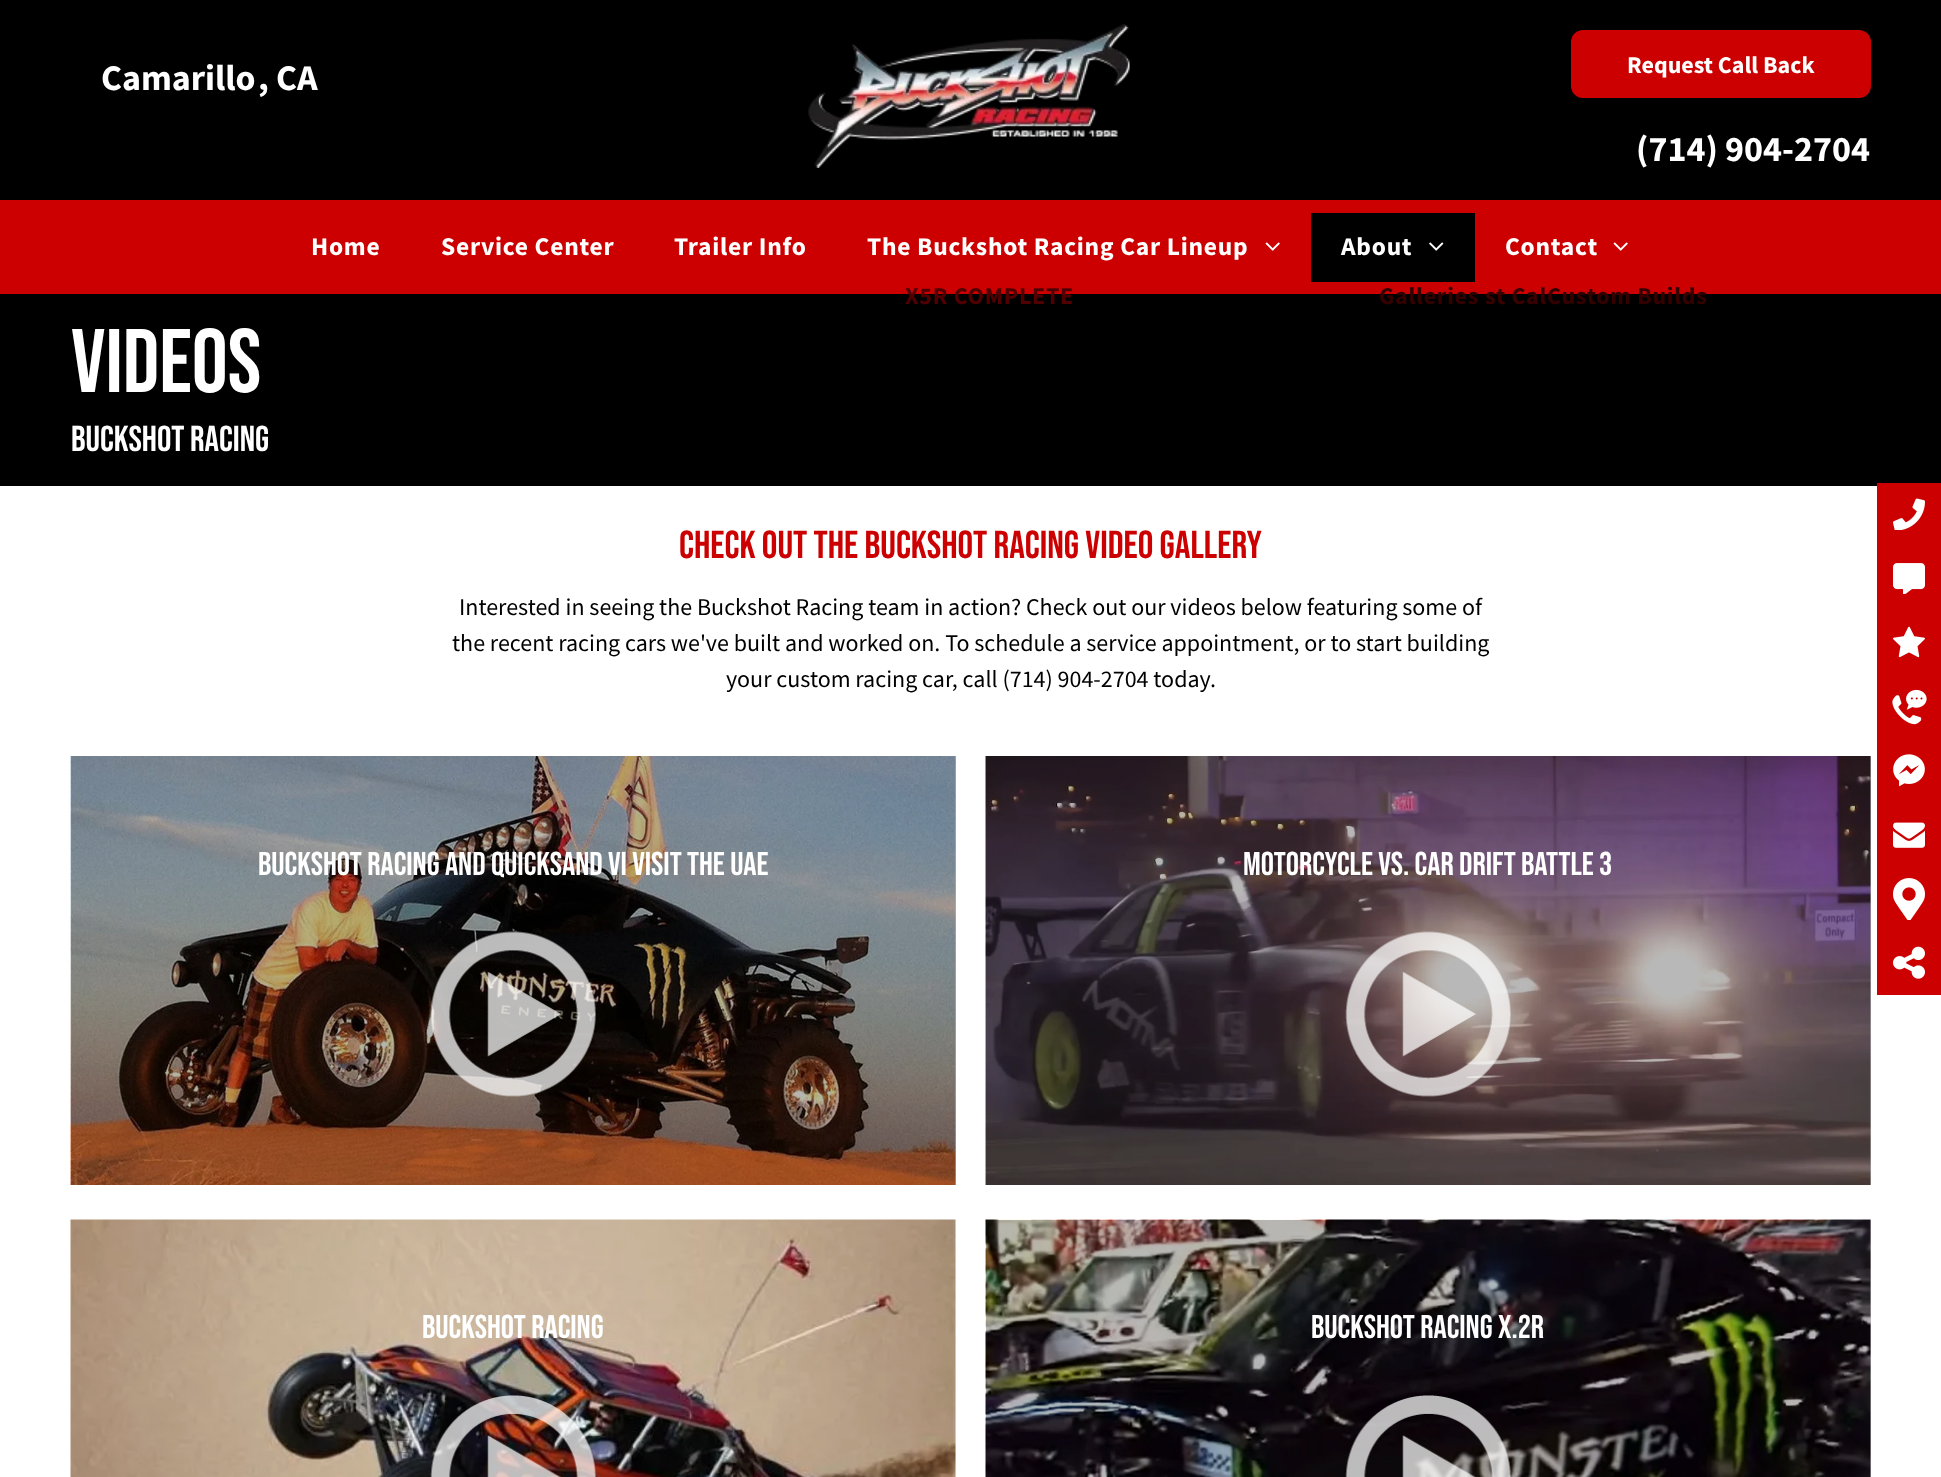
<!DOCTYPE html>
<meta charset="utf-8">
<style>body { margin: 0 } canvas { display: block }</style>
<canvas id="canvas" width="1941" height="1477"></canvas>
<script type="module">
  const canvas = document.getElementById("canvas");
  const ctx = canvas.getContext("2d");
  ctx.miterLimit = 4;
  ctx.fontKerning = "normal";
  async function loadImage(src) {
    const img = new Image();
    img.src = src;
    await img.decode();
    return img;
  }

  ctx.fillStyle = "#ffffff";
  ctx.fillRect(0, 0, 1941, 1477);
  ctx.fillStyle = "#b8b8b8";
  ctx.fillRect(1870, 1220, 1, 257);
  ctx.fillStyle = "#f7f7f7";
  ctx.fillRect(955, 1220, 1, 257);
  ctx.fillStyle = "#b8b8b8";
  ctx.fillRect(1870, 756, 1, 429);
  ctx.fillRect(955, 756, 1, 429);
  ctx.fillStyle = "#000000";
  ctx.fillRect(0, 0, 1941, 200);
  ctx.font = "bold 36px Source Sans Pro";
  ctx.fillStyle = "#ffffff";
  ctx.fillText("Camarillo", 101, 90);
  ctx.fillText(", CA", 258, 90);
  ctx.drawImage(await loadImage("img1.png"), 808, 24, 322, 144);
  ctx.fillStyle = "#cc0000";
  ctx.beginPath();
  ctx.roundRect(1571, 30, 300, 68, 12);
  ctx.fill();
  ctx.font = "bold 24px Source Sans Pro";
  ctx.fillStyle = "#ffffff";
  ctx.fillText("Request Call Back", 1627, 73);
  ctx.font = "bold 36px Source Sans Pro";
  ctx.fillText("(714) 904-2704", 1636, 161);
  ctx.fillStyle = "#cc0000";
  ctx.fillRect(0, 200, 1941, 94);
  ctx.letterSpacing = "0.75px";
  ctx.font = "bold 25.5px Source Sans Pro";
  ctx.fillStyle = "#ffffff";
  ctx.fillText("Home", 311, 255);
  ctx.fillText("Service Center", 441, 255);
  ctx.fillText("Trailer Info", 674, 255);
  ctx.fillText("The Buckshot Racing Car Lineup", 867, 255);
  ctx.drawImage(await loadImage("img2.png"), 1265, 242, 15, 9);
  ctx.fillStyle = "#000000";
  ctx.fillRect(0, 294, 1941, 192);
  ctx.font = "bold 24px Source Sans Pro";
  ctx.fillStyle = "#500000";
  ctx.fillText("X5R COMPLETE", 905, 304);
  ctx.fillStyle = "#000000";
  ctx.fillRect(1311, 213, 164, 69);
  ctx.font = "bold 25.5px Source Sans Pro";
  ctx.fillStyle = "#ffffff";
  ctx.fillText("About", 1341, 255);
  ctx.drawImage(await loadImage("img3.png"), 1429, 242, 15, 9);
  ctx.font = "bold 24px Source Sans Pro";
  ctx.fillStyle = "#350000";
  ctx.fillText("Galleries", 1379, 304);
  ctx.fillText("Custom Builds", 1547, 304);
  ctx.font = "bold 25.5px Source Sans Pro";
  ctx.fillStyle = "#ffffff";
  ctx.fillText("Contact", 1505, 255);
  ctx.drawImage(await loadImage("img2.png"), 1613, 242, 15, 9);
  ctx.font = "bold 24px Source Sans Pro";
  ctx.fillStyle = "#3b0000";
  ctx.fillText("st Cal", 1485, 304);
  ctx.letterSpacing = "0px";
  ctx.font = "90px Bebas Neue";
  ctx.fillStyle = "#ffffff";
  ctx.fillText("Videos", 71, 392);
  ctx.font = "36px Bebas Neue";
  ctx.fillText("Buckshot Racing", 71, 451);
  ctx.font = "39px Bebas Neue";
  ctx.fillStyle = "#cc0000";
  ctx.fillText("Check Out the Buckshot Racing Video Gallery", 679, 558);
  ctx.font = "24px Source Sans Pro";
  ctx.fillStyle = "#000000";
  ctx.fillText("Interested in seeing the Buckshot Racing team in action? Check out our videos below featuring some of", 459, 615);
  ctx.fillText("the recent racing cars we've built and worked on. To schedule a service appointment, or to start building", 452, 651);
  ctx.fillText("your custom racing car, call (714) 904-2704 today.", 726, 687);
  ctx.drawImage(await loadImage("img4.png"), 70, 756, 886, 429);
  ctx.font = "33px Bebas Neue";
  ctx.fillStyle = "#ffffff";
  ctx.fillText("Buckshot Racing and Quicksand VI visit the UAE", 258, 875);
  ctx.drawImage(await loadImage("img5.png"), 430, 931, 166, 166);
  ctx.drawImage(await loadImage("img6.png"), 985, 756, 886, 429);
  ctx.fillText("Motorcycle vs. Car Drift Battle 3", 1243, 875);
  ctx.drawImage(await loadImage("img7.png"), 1345, 931, 166, 166);
  ctx.drawImage(await loadImage("img8.png"), 70, 1219, 886, 258);
  ctx.fillText("Buckshot Racing", 422, 1338);
  ctx.drawImage(await loadImage("img9.png"), 430, 1395, 166, 82);
  ctx.drawImage(await loadImage("img10.png"), 985, 1219, 886, 258);
  ctx.fillText("Buckshot Racing X.2R", 1311, 1338);
  ctx.drawImage(await loadImage("img11.png"), 1345, 1395, 166, 82);
  ctx.fillStyle = "#cc0000";
  ctx.fillRect(1877, 483, 64, 512);
  ctx.drawImage(await loadImage("img12.png"), 1893, 498, 32, 32);
  ctx.drawImage(await loadImage("img13.png"), 1893, 563, 32, 31);
  ctx.drawImage(await loadImage("img14.png"), 1893, 626, 32, 32);
  ctx.drawImage(await loadImage("img15.png"), 1892, 689, 35, 36);
  ctx.drawImage(await loadImage("img16.png"), 1893, 754, 32, 33);
  ctx.drawImage(await loadImage("img17.png"), 1893, 822, 32, 26);
  ctx.drawImage(await loadImage("img18.png"), 1893, 878, 32, 42);
  ctx.drawImage(await loadImage("img19.png"), 1893, 946, 32, 33);
</script>
